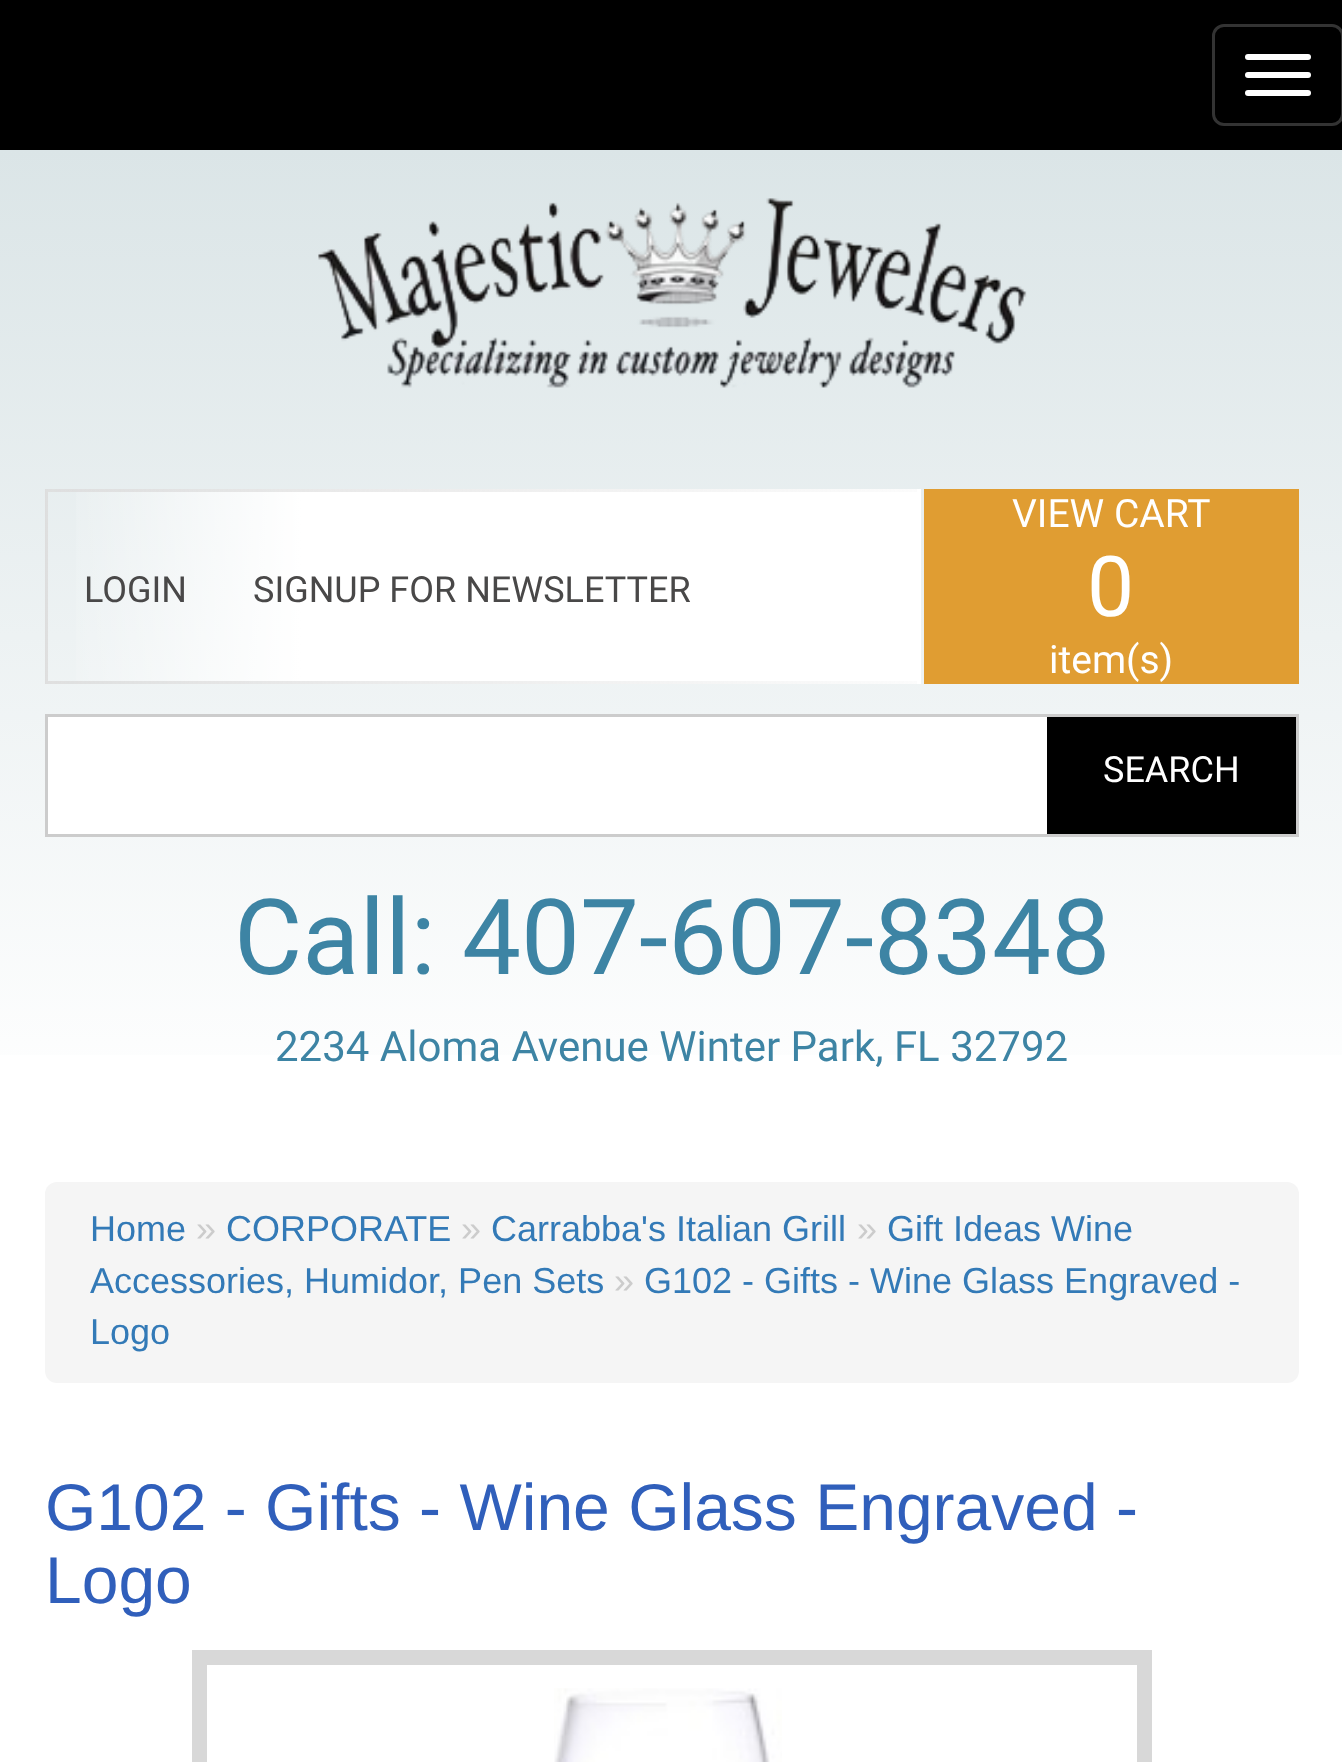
<!DOCTYPE html>
<meta charset="utf-8">
<style>body { margin: 0 } canvas { display: block }</style>
<canvas id="canvas" width="1342" height="1762"></canvas>
<script type="module">
  const canvas = document.getElementById("canvas");
  const ctx = canvas.getContext("2d");
  ctx.miterLimit = 4;
  ctx.fontKerning = "normal";
  async function loadImage(src) {
    const img = new Image();
    img.src = src;
    await img.decode();
    return img;
  }
  let gradient;

  ctx.fillStyle = "#ffffff";
  ctx.fillRect(0, 0, 1342, 1762);
  ctx.fillStyle = "#000000";
  ctx.fillRect(0, 0, 1342, 150);
  ctx.beginPath();
  ctx.roundRect(1213.5, 25.5, 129, 99, 10.5);
  ctx.strokeStyle = "#333333";
  ctx.lineWidth = 3;
  ctx.stroke();
  ctx.fillStyle = "#ffffff";
  ctx.beginPath();
  ctx.roundRect(1245, 54, 66, 6, 3);
  ctx.fill();
  ctx.beginPath();
  ctx.roundRect(1245, 72, 66, 6, 3);
  ctx.fill();
  ctx.beginPath();
  ctx.roundRect(1245, 90, 66, 6, 3);
  ctx.fill();
  gradient = ctx.createLinearGradient(672, 150, 672, 1122);
  gradient.addColorStop(0, "#dbe5e7");
  gradient.addColorStop(1, "#ffffff");
  ctx.fillStyle = gradient;
  ctx.fillRect(0, 150, 1342, 905);
  ctx.drawImage(await loadImage("img1.png"), 318, 198, 709, 190);
  gradient = ctx.createLinearGradient(921, 587, 48, 587);
  gradient.addColorStop(0.71, "#ffffff");
  gradient.addColorStop(1, "rgba(255, 255, 255, 0)");
  ctx.fillStyle = gradient;
  ctx.fillRect(76, 489, 845, 195);
  ctx.drawImage(await loadImage("img2.png"), 45, 489, 872, 195);
  ctx.font = "36px Roboto";
  ctx.fillStyle = "#494848";
  ctx.fillText("LOGIN", 84, 602);
  ctx.fillText("SIGNUP FOR NEWSLETTER", 253, 602);
  ctx.fillStyle = "#e09d32";
  ctx.fillRect(924, 489, 375, 195);
  ctx.font = "39px Roboto";
  ctx.fillStyle = "#ffffff";
  ctx.fillText("VIEW CART", 1012, 527);
  ctx.font = "84px Roboto";
  ctx.fillText("0", 1087, 616);
  ctx.font = "39px Roboto";
  ctx.fillText("item(s)", 1049, 673);
  ctx.strokeStyle = "#cccccc";
  ctx.strokeRect(46.5, 715.5, 1251, 120);
  ctx.fillRect(48, 717, 999, 117);
  ctx.fillStyle = "#000000";
  ctx.fillRect(1047, 717, 249, 117);
  ctx.font = "36px Roboto";
  ctx.fillStyle = "#ffffff";
  ctx.fillText("SEARCH", 1103, 782);
  ctx.font = "105px Roboto";
  ctx.fillStyle = "#3d84a4";
  ctx.fillText("Call: 407-607-8348", 234, 974);
  ctx.font = "42px Roboto";
  ctx.fillText("2234 Aloma Avenue Winter Park, FL 32792", 275, 1061);
  ctx.fillStyle = "#f5f5f5";
  ctx.beginPath();
  ctx.roundRect(45, 1182, 1254, 201, 12);
  ctx.fill();
  ctx.font = "36px Liberation Sans";
  ctx.fillStyle = "#337ab7";
  ctx.fillText("Home", 90, 1241);
  ctx.fillStyle = "#cccccc";
  ctx.fillText("»", 196, 1241);
  ctx.fillStyle = "#337ab7";
  ctx.fillText("CORPORATE", 226, 1241);
  ctx.fillStyle = "#cccccc";
  ctx.fillText("»", 461, 1241);
  ctx.fillStyle = "#337ab7";
  ctx.fillText("Carrabba's Italian Grill", 491, 1241);
  ctx.fillStyle = "#cccccc";
  ctx.fillText("»", 857, 1241);
  ctx.fillStyle = "#337ab7";
  ctx.fillText("Gift Ideas Wine", 887, 1241);
  ctx.fillText("Accessories, Humidor, Pen Sets", 90, 1293);
  ctx.fillStyle = "#cccccc";
  ctx.fillText("»", 614, 1293);
  ctx.fillStyle = "#337ab7";
  ctx.fillText("G102 - Gifts - Wine Glass Engraved -", 644, 1293);
  ctx.fillText("Logo", 90, 1344);
  ctx.font = "66px Liberation Sans";
  ctx.fillStyle = "#305fbb";
  ctx.fillText("G102 - Gifts - Wine Glass Engraved -", 45, 1530);
  ctx.fillText("Logo", 45, 1603);
  ctx.strokeStyle = "#d8d8d8";
  ctx.lineWidth = 15;
  ctx.strokeRect(199.5, 1657.5, 945, 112);
  ctx.drawImage(await loadImage("img3.png"), 554, 1688, 228, 74);
</script>
